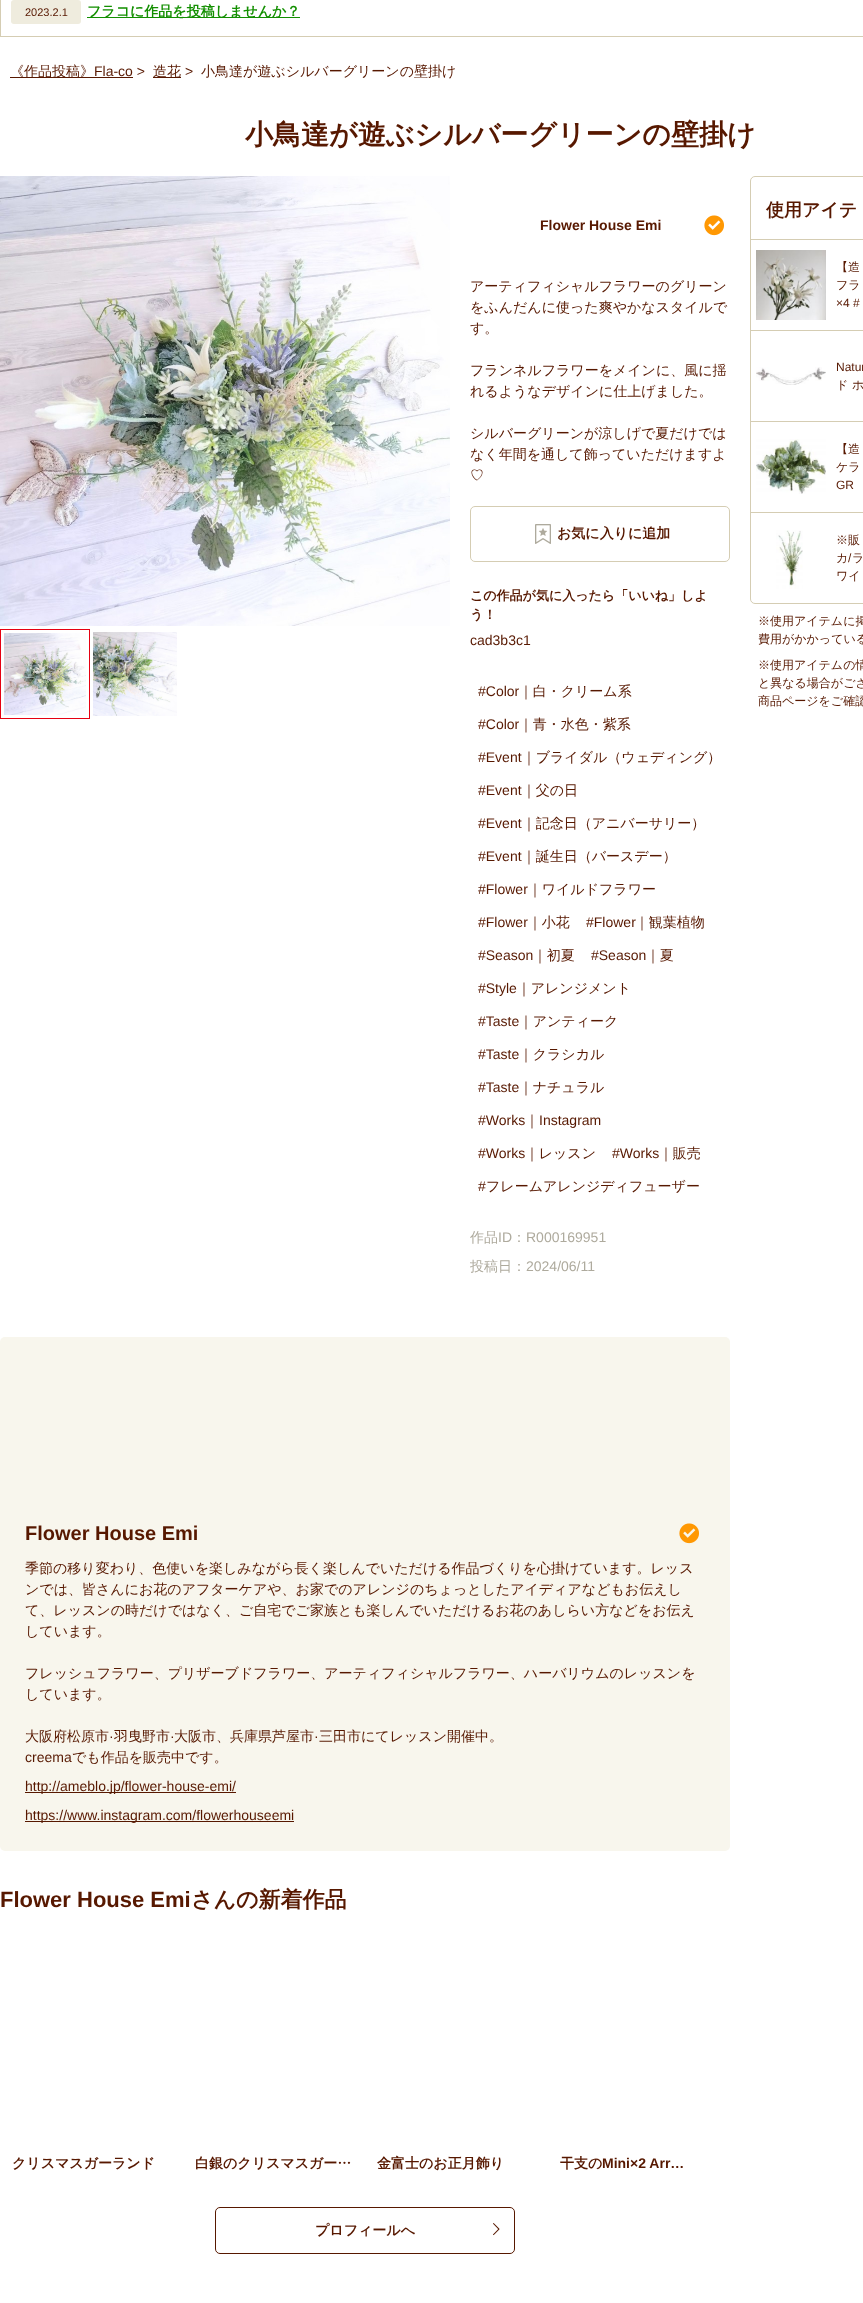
<!DOCTYPE html>
<meta charset="utf-8">
<style>body { margin: 0 } canvas { display: block }</style>
<canvas id="canvas" width="863" height="2303"></canvas>
<script type="module">
  const canvas = document.getElementById("canvas");
  const ctx = canvas.getContext("2d");
  ctx.miterLimit = 4;
  ctx.fontKerning = "normal";
  async function loadImage(src) {
    const img = new Image();
    img.src = src;
    await img.decode();
    return img;
  }

  ctx.fillStyle = "#ffffff";
  ctx.fillRect(0, 0, 863, 2303);
  ctx.strokeStyle = "#d5cdb3";
  ctx.strokeRect(0.5, -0.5, 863, 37);
  ctx.fillStyle = "#efecde";
  ctx.beginPath();
  ctx.roundRect(11, 0, 70, 24, 3);
  ctx.fill();
  ctx.font = "11px Liberation Sans";
  ctx.fillStyle = "#571800";
  ctx.fillText("2023.2.1", 25, 16);
  ctx.fillStyle = "#138f01";
  ctx.fillRect(87, 17, 213, 1);
  ctx.font = "bold 14px WenQuanYi Zen Hei";
  ctx.fillText("フラコに作品を投稿しませんか？", 87, 16);
  ctx.fillStyle = "#571800";
  ctx.fillRect(10, 77, 123, 1);
  ctx.font = "500 14px WenQuanYi Zen Hei";
  ctx.fillText("《作品投稿》", 10, 76);
  ctx.font = "14px Liberation Sans";
  ctx.fillText("Fla-co >", 94, 76);
  ctx.fillRect(153, 77, 28, 1);
  ctx.font = "500 14px WenQuanYi Zen Hei";
  ctx.fillText("造花", 153, 76);
  ctx.font = "14px Liberation Sans";
  ctx.fillText(">", 185, 76);
  ctx.font = "500 14px WenQuanYi Zen Hei";
  ctx.fillText("小鳥達が遊ぶシルバーグリーンの壁掛け", 201, 76);
  ctx.font = "bold 28px WenQuanYi Zen Hei";
  ctx.fillText("小鳥達が遊ぶシルバーグリーンの壁掛け", 245, 144);
  ctx.drawImage(await loadImage("img1.png"), 0, 176, 450, 450);
  ctx.strokeStyle = "#e60012";
  ctx.strokeRect(0.5, 629.5, 89, 89);
  ctx.drawImage(await loadImage("img2.png"), 4, 633, 82, 82);
  ctx.drawImage(await loadImage("img3.png"), 93, 632, 84, 84);
  ctx.font = "bold 14px Liberation Sans";
  ctx.fillText("Flower House Emi", 540, 230);
  ctx.drawImage(await loadImage("img4.png"), 704, 215, 20, 21);
  ctx.font = "500 14px WenQuanYi Zen Hei";
  ctx.fillText("アーティフィシャルフラワーのグリーン", 470, 291);
  ctx.fillText("をふんだんに使った爽やかなスタイルで", 470, 312);
  ctx.fillText("す。", 470, 333);
  ctx.fillText("フランネルフラワーをメインに、風に揺", 470, 375);
  ctx.fillText("れるようなデザインに仕上げました。", 470, 396);
  ctx.fillText("シルバーグリーンが涼しげで夏だけでは", 470, 438);
  ctx.fillText("なく年間を通して飾っていただけますよ", 470, 459);
  ctx.fillText("♡", 470, 480);
  ctx.beginPath();
  ctx.roundRect(470.5, 506.5, 259, 55, 4.5);
  ctx.strokeStyle = "#d5cdb3";
  ctx.stroke();
  ctx.drawImage(await loadImage("img5.png"), 535, 524, 16, 20);
  ctx.font = "bold 14px WenQuanYi Zen Hei";
  ctx.fillText("お気に入りに追加", 557, 538);
  ctx.font = "bold 13px WenQuanYi Zen Hei";
  ctx.fillText("この作品が気に入ったら「いいね」しよ", 470, 600);
  ctx.fillText("う！", 470, 619);
  ctx.font = "14px Liberation Sans";
  ctx.fillText("cad3b3c1", 470, 645);
  ctx.fillText("#Color", 478, 696);
  ctx.font = "500 14px WenQuanYi Zen Hei";
  ctx.fillText("｜白・クリーム系", 519, 696);
  ctx.font = "14px Liberation Sans";
  ctx.fillText("#Color", 478, 729);
  ctx.font = "500 14px WenQuanYi Zen Hei";
  ctx.fillText("｜青・水色・紫系", 519, 729);
  ctx.font = "14px Liberation Sans";
  ctx.fillText("#Event", 478, 762);
  ctx.font = "500 14px WenQuanYi Zen Hei";
  ctx.fillText("｜ブライダル（ウェディング）", 522, 762);
  ctx.font = "14px Liberation Sans";
  ctx.fillText("#Event", 478, 795);
  ctx.font = "500 14px WenQuanYi Zen Hei";
  ctx.fillText("｜父の日", 522, 795);
  ctx.font = "14px Liberation Sans";
  ctx.fillText("#Event", 478, 828);
  ctx.font = "500 14px WenQuanYi Zen Hei";
  ctx.fillText("｜記念日（アニバーサリー）", 522, 828);
  ctx.font = "14px Liberation Sans";
  ctx.fillText("#Event", 478, 861);
  ctx.font = "500 14px WenQuanYi Zen Hei";
  ctx.fillText("｜誕生日（バースデー）", 522, 861);
  ctx.font = "14px Liberation Sans";
  ctx.fillText("#Flower", 478, 894);
  ctx.font = "500 14px WenQuanYi Zen Hei";
  ctx.fillText("｜ワイルドフラワー", 528, 894);
  ctx.font = "14px Liberation Sans";
  ctx.fillText("#Flower", 478, 927);
  ctx.font = "500 14px WenQuanYi Zen Hei";
  ctx.fillText("｜小花", 528, 927);
  ctx.font = "14px Liberation Sans";
  ctx.fillText("#Flower", 586, 927);
  ctx.font = "500 14px WenQuanYi Zen Hei";
  ctx.fillText("｜観葉植物", 635, 927);
  ctx.font = "14px Liberation Sans";
  ctx.fillText("#Season", 478, 960);
  ctx.font = "500 14px WenQuanYi Zen Hei";
  ctx.fillText("｜初夏", 533, 960);
  ctx.font = "14px Liberation Sans";
  ctx.fillText("#Season", 591, 960);
  ctx.font = "500 14px WenQuanYi Zen Hei";
  ctx.fillText("｜夏", 646, 960);
  ctx.font = "14px Liberation Sans";
  ctx.fillText("#Style", 478, 993);
  ctx.font = "500 14px WenQuanYi Zen Hei";
  ctx.fillText("｜アレンジメント", 517, 993);
  ctx.font = "14px Liberation Sans";
  ctx.fillText("#Taste", 478, 1026);
  ctx.font = "500 14px WenQuanYi Zen Hei";
  ctx.fillText("｜アンティーク", 519, 1026);
  ctx.font = "14px Liberation Sans";
  ctx.fillText("#Taste", 478, 1059);
  ctx.font = "500 14px WenQuanYi Zen Hei";
  ctx.fillText("｜クラシカル", 519, 1059);
  ctx.font = "14px Liberation Sans";
  ctx.fillText("#Taste", 478, 1092);
  ctx.font = "500 14px WenQuanYi Zen Hei";
  ctx.fillText("｜ナチュラル", 519, 1092);
  ctx.font = "14px Liberation Sans";
  ctx.fillText("#Works", 478, 1125);
  ctx.font = "500 14px WenQuanYi Zen Hei";
  ctx.fillText("｜", 525, 1125);
  ctx.font = "14px Liberation Sans";
  ctx.fillText("Instagram", 539, 1125);
  ctx.fillText("#Works", 478, 1158);
  ctx.font = "500 14px WenQuanYi Zen Hei";
  ctx.fillText("｜レッスン", 525, 1158);
  ctx.font = "14px Liberation Sans";
  ctx.fillText("#Works", 612, 1158);
  ctx.font = "500 14px WenQuanYi Zen Hei";
  ctx.fillText("｜販売", 659, 1158);
  ctx.font = "14px Liberation Sans";
  ctx.fillText("#", 478, 1191);
  ctx.font = "500 14px WenQuanYi Zen Hei";
  ctx.fillText("フレームアレンジディフューザー", 486, 1191);
  ctx.fillStyle = "#aeaa9d";
  ctx.fillText("作品", 470, 1242);
  ctx.font = "14px Liberation Sans";
  ctx.fillText("ID", 498, 1242);
  ctx.font = "500 14px WenQuanYi Zen Hei";
  ctx.fillText("：", 512, 1242);
  ctx.font = "14px Liberation Sans";
  ctx.fillText("R000169951", 526, 1242);
  ctx.font = "500 14px WenQuanYi Zen Hei";
  ctx.fillText("投稿日：", 470, 1271);
  ctx.font = "14px Liberation Sans";
  ctx.fillText("2024/06/11", 526, 1271);
  ctx.fillStyle = "#f8f6ed";
  ctx.beginPath();
  ctx.roundRect(0, 1337, 730, 514, 5);
  ctx.fill();
  ctx.font = "bold 20px Liberation Sans";
  ctx.fillStyle = "#571800";
  ctx.fillText("Flower House Emi", 25, 1540);
  ctx.drawImage(await loadImage("img6.png"), 679, 1523, 20, 21);
  ctx.font = "500 14px WenQuanYi Zen Hei";
  ctx.fillText("季節の移り変わり、色使いを楽しみながら長く楽しんでいただける作品づくりを心掛けています。レッス", 25, 1573);
  ctx.fillText("ンでは、皆さんにお花のアフターケアや、お家でのアレンジのちょっとしたアイディアなどもお伝えし", 25, 1594);
  ctx.fillText("て、レッスンの時だけではなく、ご自宅でご家族とも楽しんでいただけるお花のあしらい方などをお伝え", 25, 1615);
  ctx.fillText("しています。", 25, 1636);
  ctx.fillText("フレッシュフラワー、プリザーブドフラワー、アーティフィシャルフラワー、ハーバリウムのレッスンを", 25, 1678);
  ctx.fillText("しています。", 25, 1699);
  ctx.fillText("大阪府松原市", 25, 1741);
  ctx.font = "14px Liberation Sans";
  ctx.fillText("·", 109, 1741);
  ctx.font = "500 14px WenQuanYi Zen Hei";
  ctx.fillText("羽曳野市", 114, 1741);
  ctx.font = "14px Liberation Sans";
  ctx.fillText("·", 170, 1741);
  ctx.font = "500 14px WenQuanYi Zen Hei";
  ctx.fillText("大阪市、兵庫県芦屋市", 174, 1741);
  ctx.font = "14px Liberation Sans";
  ctx.fillText("·", 314, 1741);
  ctx.font = "500 14px WenQuanYi Zen Hei";
  ctx.fillText("三田市にてレッスン開催中。", 319, 1741);
  ctx.font = "14px Liberation Sans";
  ctx.fillText("creema", 25, 1762);
  ctx.font = "500 14px WenQuanYi Zen Hei";
  ctx.fillText("でも作品を販売中です。", 72, 1762);
  ctx.fillRect(25, 1792, 211, 1);
  ctx.font = "14px Liberation Sans";
  ctx.fillText("http://ameblo.jp/flower-house-emi/", 25, 1791);
  ctx.fillRect(25, 1821, 269, 1);
  ctx.fillText("https://www.instagram.com/flowerhouseemi", 25, 1820);
  ctx.font = "bold 22px Liberation Sans";
  ctx.fillText("Flower House Emi", 0, 1907);
  ctx.font = "bold 22px WenQuanYi Zen Hei";
  ctx.fillText("さんの新着作品", 191, 1907);
  ctx.font = "bold 14px WenQuanYi Zen Hei";
  ctx.fillText("クリスマスガーランド", 12, 2168);
  ctx.fillText("白銀のクリスマスガー…", 195, 2168);
  ctx.fillText("金富士のお正月飾り", 377, 2168);
  ctx.fillText("干支の", 560, 2168);
  ctx.font = "bold 14px Liberation Sans";
  ctx.fillText("Mini×2 Arr…", 602, 2168);
  ctx.beginPath();
  ctx.roundRect(215.5, 2207.5, 299, 46, 4.5);
  ctx.strokeStyle = "#571800";
  ctx.stroke();
  ctx.font = "bold 14px WenQuanYi Zen Hei";
  ctx.fillText("プロフィールへ", 315, 2235);
  ctx.drawImage(await loadImage("img7.png"), 493, 2223, 7, 13);
  ctx.beginPath();
  ctx.roundRect(750.5, 176.5, 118, 427, 4.5);
  ctx.strokeStyle = "#d5cdb3";
  ctx.stroke();
  ctx.font = "bold 18px WenQuanYi Zen Hei";
  ctx.fillText("使用アイテ", 766, 216);
  ctx.fillStyle = "#d5cdb3";
  ctx.fillRect(751, 239, 112, 1);
  ctx.drawImage(await loadImage("img8.png"), 756, 250, 70, 70);
  ctx.font = "500 12px WenQuanYi Zen Hei";
  ctx.fillStyle = "#571800";
  ctx.fillText("【造", 836, 271);
  ctx.fillText("フラ", 836, 289);
  ctx.font = "12px Liberation Sans";
  ctx.fillText("×4 #", 836, 307);
  ctx.fillStyle = "#d5cdb3";
  ctx.fillRect(751, 330, 112, 1);
  ctx.drawImage(await loadImage("img9.png"), 756, 367, 70, 18);
  ctx.fillStyle = "#571800";
  ctx.fillText("Natur", 836, 371);
  ctx.font = "500 12px WenQuanYi Zen Hei";
  ctx.fillText("ド ホ", 836, 389);
  ctx.fillStyle = "#d5cdb3";
  ctx.fillRect(751, 421, 112, 1);
  ctx.drawImage(await loadImage("img10.png"), 756, 439, 70, 55);
  ctx.fillStyle = "#571800";
  ctx.fillText("【造", 836, 453);
  ctx.fillText("ケラ", 836, 471);
  ctx.font = "12px Liberation Sans";
  ctx.fillText("GR", 836, 489);
  ctx.fillStyle = "#d5cdb3";
  ctx.fillRect(751, 512, 112, 1);
  ctx.drawImage(await loadImage("img11.png"), 776, 530, 27, 59);
  ctx.font = "500 12px WenQuanYi Zen Hei";
  ctx.fillStyle = "#571800";
  ctx.fillText("※販", 836, 544);
  ctx.fillText("カ ラ", 836, 562);
  ctx.font = "12px Liberation Sans";
  ctx.fillText("/", 848, 562);
  ctx.font = "500 12px WenQuanYi Zen Hei";
  ctx.fillText("ワイ", 836, 580);
  ctx.fillText("※使用アイテムに掲", 758, 625);
  ctx.fillText("費用がかかっている", 758, 643);
  ctx.fillText("※使用アイテムの情", 758, 669);
  ctx.fillText("と異なる場合がござ", 758, 687);
  ctx.fillText("商品ページをご確認", 758, 705);
</script>
